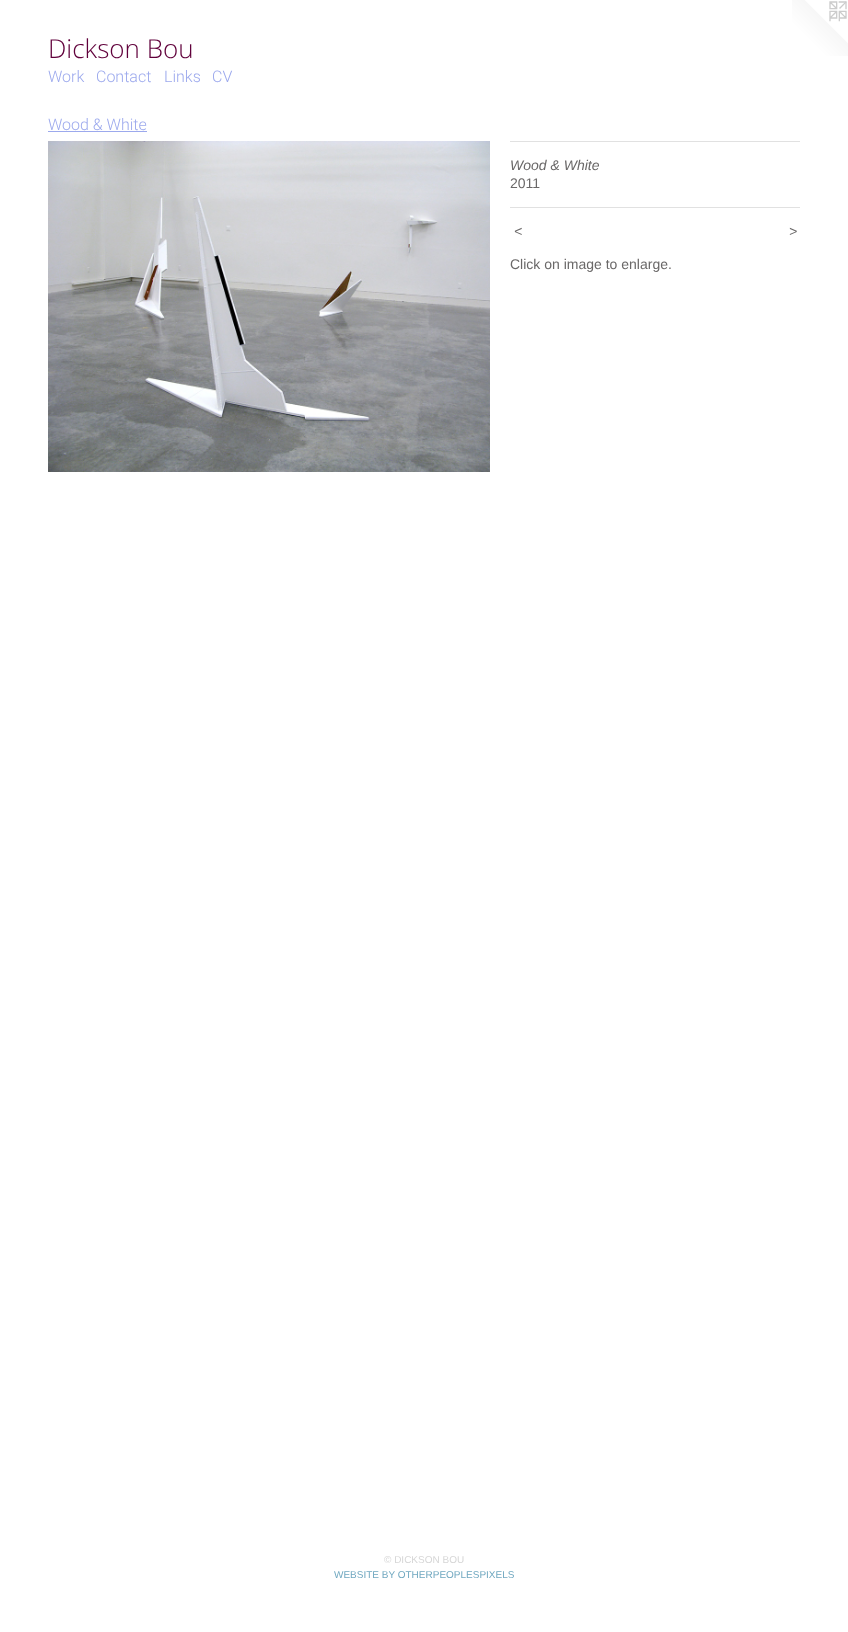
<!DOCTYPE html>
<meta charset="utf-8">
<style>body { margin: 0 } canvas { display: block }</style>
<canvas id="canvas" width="848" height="1632"></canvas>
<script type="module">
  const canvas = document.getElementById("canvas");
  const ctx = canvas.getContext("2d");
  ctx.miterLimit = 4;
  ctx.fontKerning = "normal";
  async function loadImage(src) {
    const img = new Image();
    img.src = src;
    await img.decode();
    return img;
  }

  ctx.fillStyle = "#ffffff";
  ctx.fillRect(0, 0, 848, 1632);
  ctx.font = "300 26px Open Sans";
  ctx.fillStyle = "#60003b";
  ctx.fillText("Dickson Bou", 48, 58);
  ctx.drawImage(await loadImage("img1.png"), 792, 0, 56, 56);
  ctx.font = "300 16px Roboto";
  ctx.fillStyle = "#9ca9ed";
  ctx.fillText("Work", 48, 82);
  ctx.fillText("Contact", 96, 82);
  ctx.fillText("Links", 164, 82);
  ctx.fillText("CV", 212, 82);
  ctx.fillText("Wood & White", 48, 130);
  ctx.fillRect(48, 131, 99, 1);
  ctx.drawImage(await loadImage("img2.png"), 48, 141, 442, 331);
  ctx.fillStyle = "#e1e1e1";
  ctx.fillRect(510, 141, 290, 1);
  ctx.font = "italic 14px Liberation Sans";
  ctx.fillStyle = "#6a6868";
  ctx.fillText("Wood & White", 510, 170);
  ctx.font = "14px Liberation Sans";
  ctx.fillText("2011", 510, 188);
  ctx.fillStyle = "#e1e1e1";
  ctx.fillRect(510, 207, 290, 1);
  ctx.letterSpacing = "1px";
  ctx.font = "italic 14px Liberation Sans";
  ctx.fillStyle = "#6a6868";
  ctx.fillText("<", 514, 236);
  ctx.fillText(">", 789, 236);
  ctx.letterSpacing = "0px";
  ctx.font = "14px Liberation Sans";
  ctx.fillText("Click on image to enlarge.", 510, 269);
  ctx.font = "10px Liberation Sans";
  ctx.fillStyle = "#d6d6d6";
  ctx.fillText("© DICKSON BOU", 384, 1563);
  ctx.fillStyle = "#70a8c0";
  ctx.fillText("WEBSITE BY OTHERPEOPLESPIXELS", 334, 1578);
</script>
